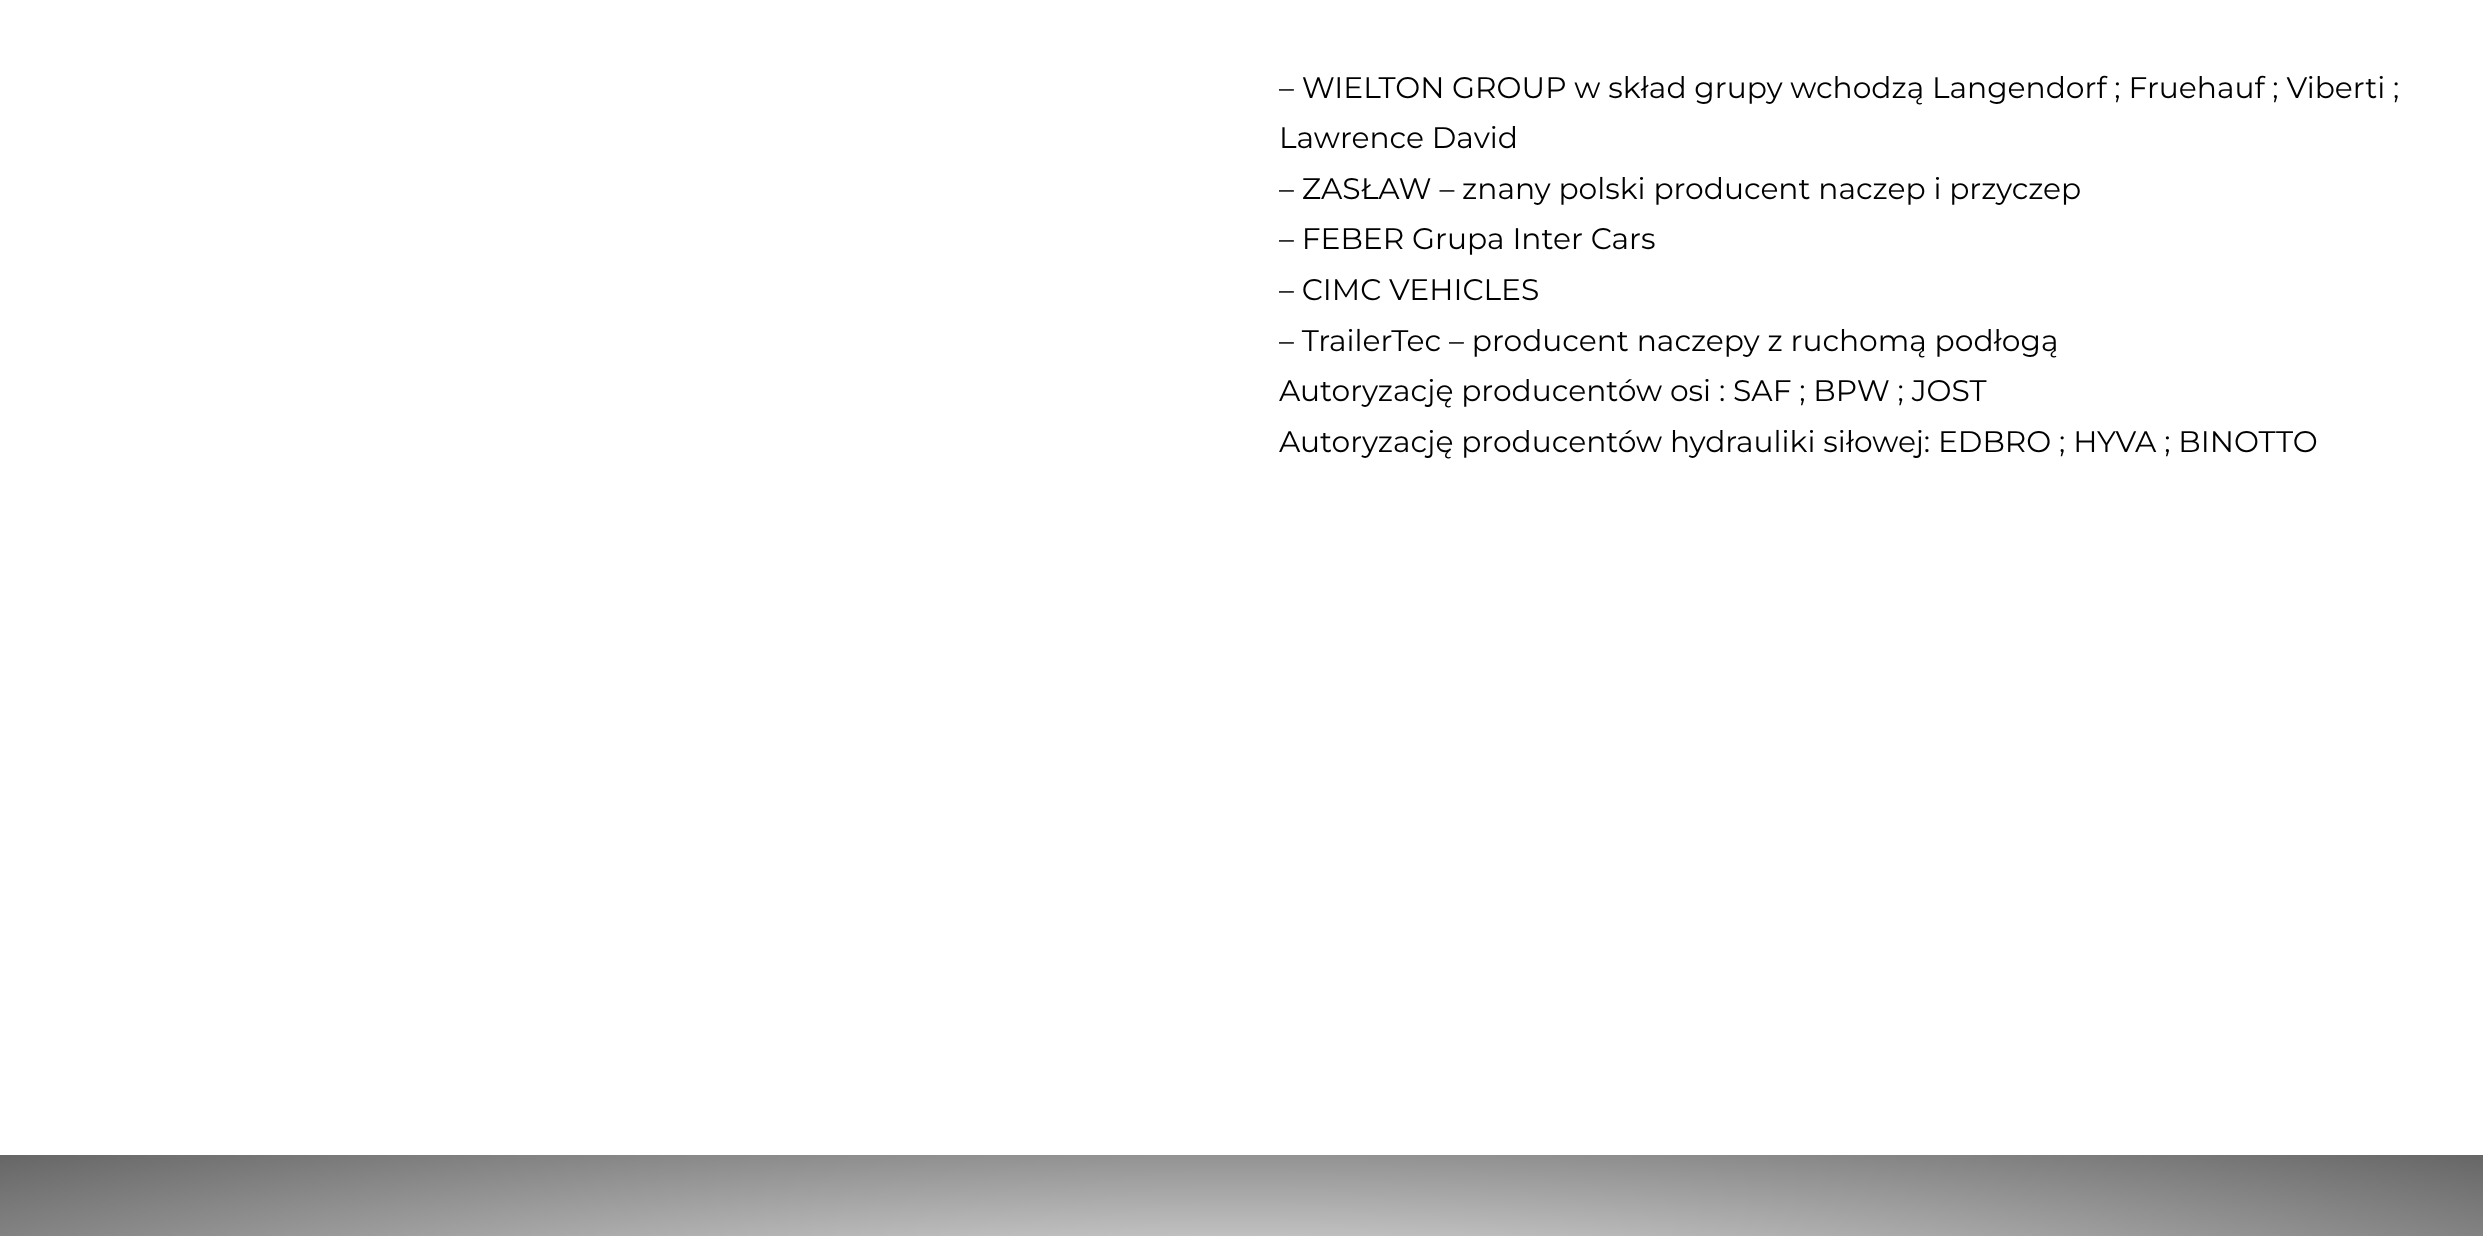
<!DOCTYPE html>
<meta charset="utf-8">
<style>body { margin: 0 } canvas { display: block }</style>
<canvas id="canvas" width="2483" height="1236"></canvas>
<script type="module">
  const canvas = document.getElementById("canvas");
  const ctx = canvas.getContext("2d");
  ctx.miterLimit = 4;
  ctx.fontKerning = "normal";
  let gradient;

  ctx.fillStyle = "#ffffff";
  ctx.fillRect(0, 0, 2483, 1236);
  ctx.font = "29.75px Montserrat";
  ctx.fillStyle = "#000000";
  ctx.fillText("– WIELTON GROUP w skład grupy wchodzą Langendorf ; Fruehauf ; Viberti ;", 1279, 98);
  ctx.fillText("Lawrence David", 1279, 148);
  ctx.fillText("– ZASŁAW – znany polski producent naczep i przyczep", 1279, 199);
  ctx.fillText("– FEBER Grupa Inter Cars", 1279, 249);
  ctx.fillText("– CIMC VEHICLES", 1279, 300);
  ctx.fillText("– TrailerTec – producent naczepy z ruchomą podłogą", 1279, 351);
  ctx.fillText("Autoryzację producentów osi : SAF ; BPW ; JOST", 1279, 401);
  ctx.fillText("Autoryzację producentów hydrauliki siłowej: EDBRO ; HYVA ; BINOTTO", 1279, 452);
  gradient = ctx.createRadialGradient(1242, 8702.53, 0, 1242, 8702.53, 1756);
  gradient.addColorStop(0, "#ffffff");
  gradient.addColorStop(1, "#666666");
  ctx.fillStyle = gradient;
  ctx.beginPath();
  ctx.rect(0, 1155, 2483, 81);
  ctx.save();
  ctx.clip();
  ctx.scale(1, 272 / 1756);
  ctx.fillRect(0, 0, 2483, 7980);
  ctx.restore();
</script>
